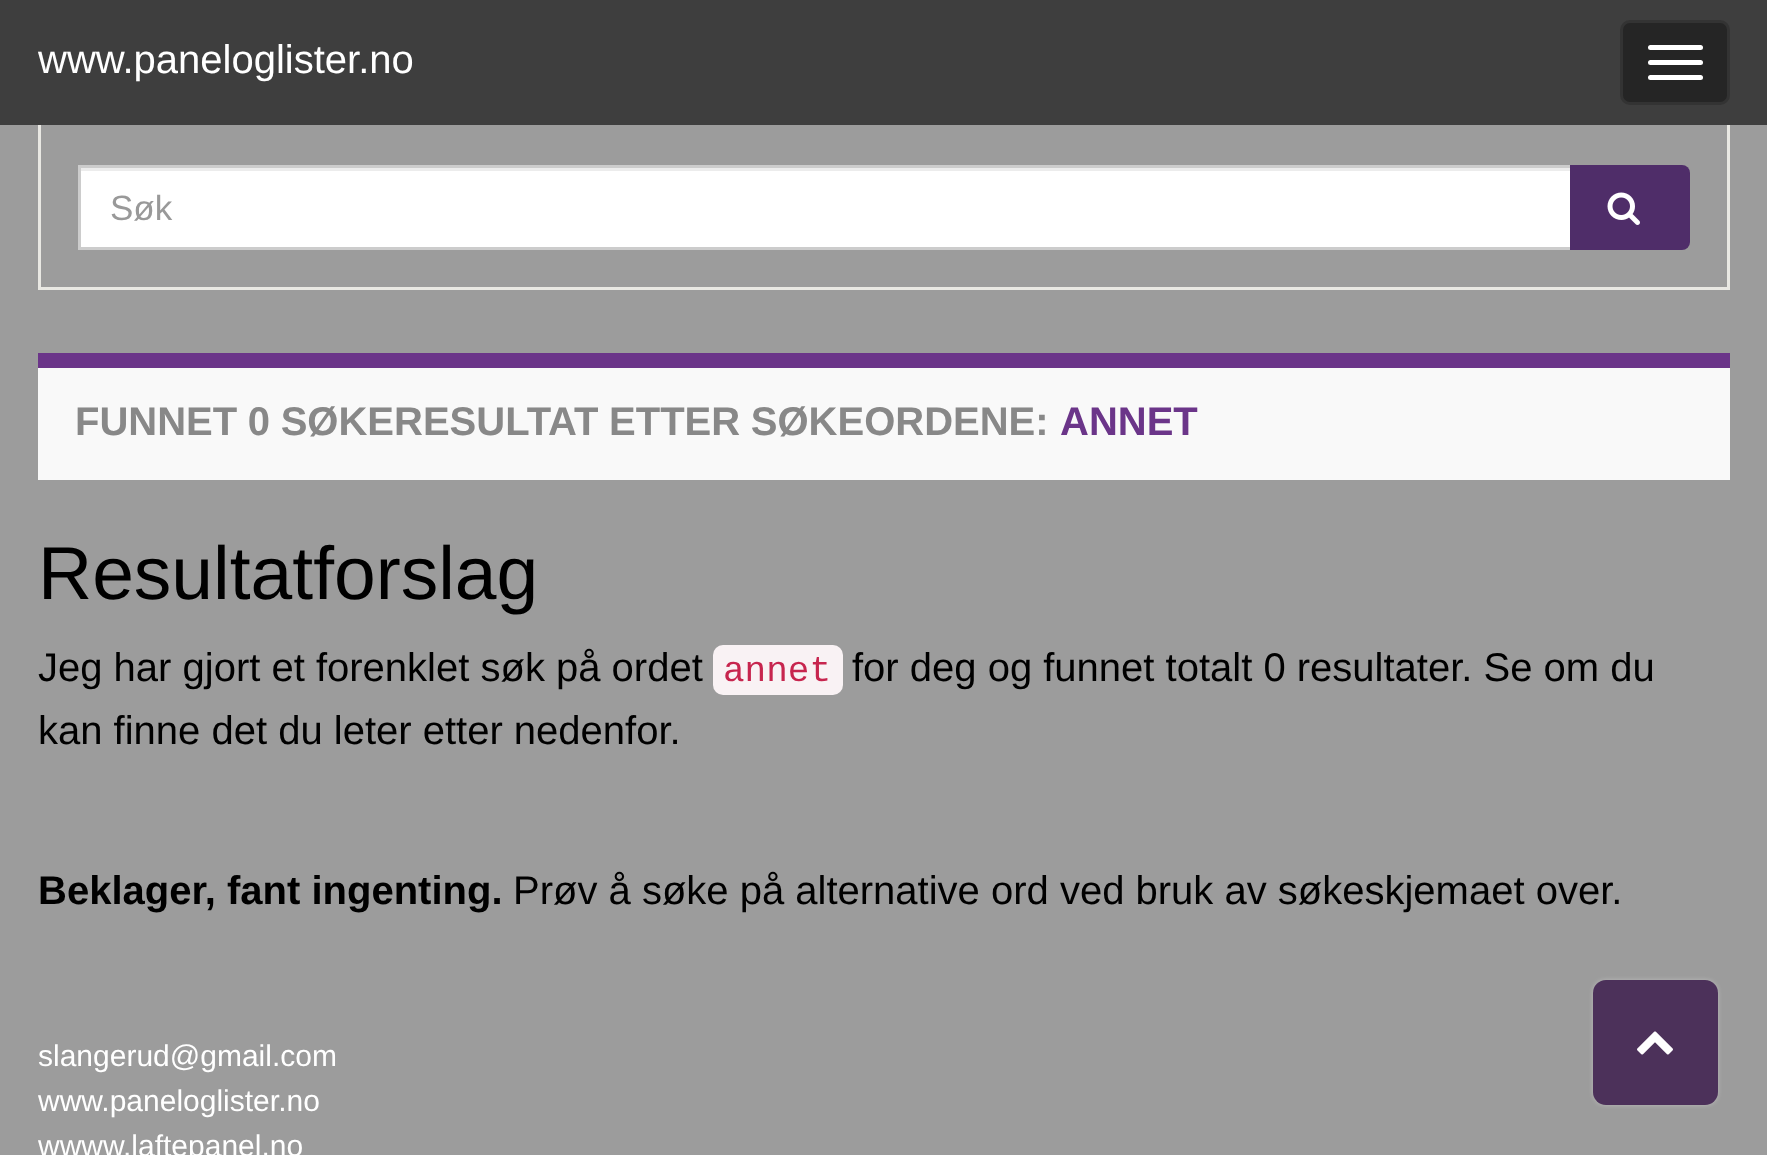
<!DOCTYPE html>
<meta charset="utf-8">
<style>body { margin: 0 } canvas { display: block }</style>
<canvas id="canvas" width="1767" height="1155"></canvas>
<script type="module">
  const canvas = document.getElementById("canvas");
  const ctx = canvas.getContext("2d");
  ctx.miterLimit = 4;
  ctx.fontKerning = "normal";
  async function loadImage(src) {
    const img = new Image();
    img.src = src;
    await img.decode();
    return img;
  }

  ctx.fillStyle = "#9c9c9c";
  ctx.fillRect(0, 0, 1767, 1155);
  ctx.strokeStyle = "#e9e8e3";
  ctx.lineWidth = 3;
  ctx.strokeRect(39.5, -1.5, 1689, 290);
  ctx.fillStyle = "#3e3e3e";
  ctx.fillRect(0, 0, 1767, 125);
  ctx.font = "40px Liberation Sans";
  ctx.fillStyle = "#ffffff";
  ctx.fillText("www.paneloglister.no", 38, 73);
  ctx.fillStyle = "#252525";
  ctx.beginPath();
  ctx.roundRect(1621.5, 21.5, 107, 82, 8.5);
  ctx.fill();
  ctx.strokeStyle = "#333333";
  ctx.stroke();
  ctx.fillStyle = "#ffffff";
  ctx.beginPath();
  ctx.roundRect(1648, 45, 55, 5, 2.5);
  ctx.fill();
  ctx.beginPath();
  ctx.roundRect(1648, 60, 55, 5, 2.5);
  ctx.fill();
  ctx.beginPath();
  ctx.roundRect(1648, 75, 55, 5, 2.5);
  ctx.fill();
  ctx.fillRect(81, 171, 1489, 76);
  ctx.fillStyle = "#ececec";
  ctx.fillRect(80, 168, 1490, 3);
  ctx.strokeStyle = "#cccccc";
  ctx.strokeRect(79.5, 166.5, 1492, 82);
  ctx.font = "35px Liberation Sans";
  ctx.fillStyle = "#999999";
  ctx.fillText("Søk", 110, 220);
  ctx.fillStyle = "#4f2d69";
  ctx.beginPath();
  ctx.roundRect(1570, 165, 120, 85, [0, 8, 8, 0]);
  ctx.fill();
  ctx.drawImage(await loadImage("img1.png"), 1607, 192, 33, 33);
  ctx.fillStyle = "#f9f9f9";
  ctx.fillRect(38, 368, 1692, 112);
  ctx.fillStyle = "#6b3589";
  ctx.fillRect(38, 353, 1692, 15);
  ctx.wordSpacing = "-0.5px";
  ctx.font = "bold 40px Liberation Sans";
  ctx.fillStyle = "#888888";
  ctx.fillText("FUNNET 0 SØKERESULTAT ETTER SØKEORDENE:", 75, 435);
  ctx.wordSpacing = "0px";
  ctx.fillStyle = "#6b3589";
  ctx.fillText("ANNET", 1060, 435);
  ctx.font = "75px Liberation Sans";
  ctx.fillStyle = "#000000";
  ctx.fillText("Resultatforslag", 38, 599);
  ctx.font = "40px Liberation Sans";
  ctx.fillText("Jeg har gjort et forenklet søk på ordet", 38, 681);
  ctx.fillStyle = "#f9f2f4";
  ctx.beginPath();
  ctx.roundRect(713, 645, 130, 50, 10);
  ctx.fill();
  ctx.font = "36px Liberation Mono";
  ctx.fillStyle = "#c7254e";
  ctx.fillText("annet", 723, 681);
  ctx.font = "40px Liberation Sans";
  ctx.fillStyle = "#000000";
  ctx.fillText("for deg og funnet totalt 0 resultater. Se om du", 852, 681);
  ctx.fillText("kan finne det du leter etter nedenfor.", 38, 744);
  ctx.font = "bold 40px Liberation Sans";
  ctx.fillText("Beklager, fant ingenting.", 38, 904);
  ctx.font = "40px Liberation Sans";
  ctx.fillText("Prøv å søke på alternative ord ved bruk av søkeskjemaet over.", 513, 904);
  ctx.font = "30px Liberation Sans";
  ctx.fillStyle = "#ffffff";
  ctx.fillText("slangerud@gmail.com", 38, 1066);
  ctx.fillText("www.paneloglister.no", 38, 1111);
  ctx.fillText("wwww.laftepanel.no", 38, 1156);
  ctx.fillStyle = "rgba(255, 255, 255, 0.3)";
  ctx.filter = "blur(2.5px)";
  ctx.beginPath();
  ctx.roundRect(1593, 980, 125, 125, 13);
  ctx.fill();
  ctx.filter = "none";
  ctx.fillStyle = "#4c315a";
  ctx.beginPath();
  ctx.roundRect(1593, 980, 125, 125, 13);
  ctx.fill();
  ctx.drawImage(await loadImage("img2.png"), 1637, 1031, 36, 24);
</script>
